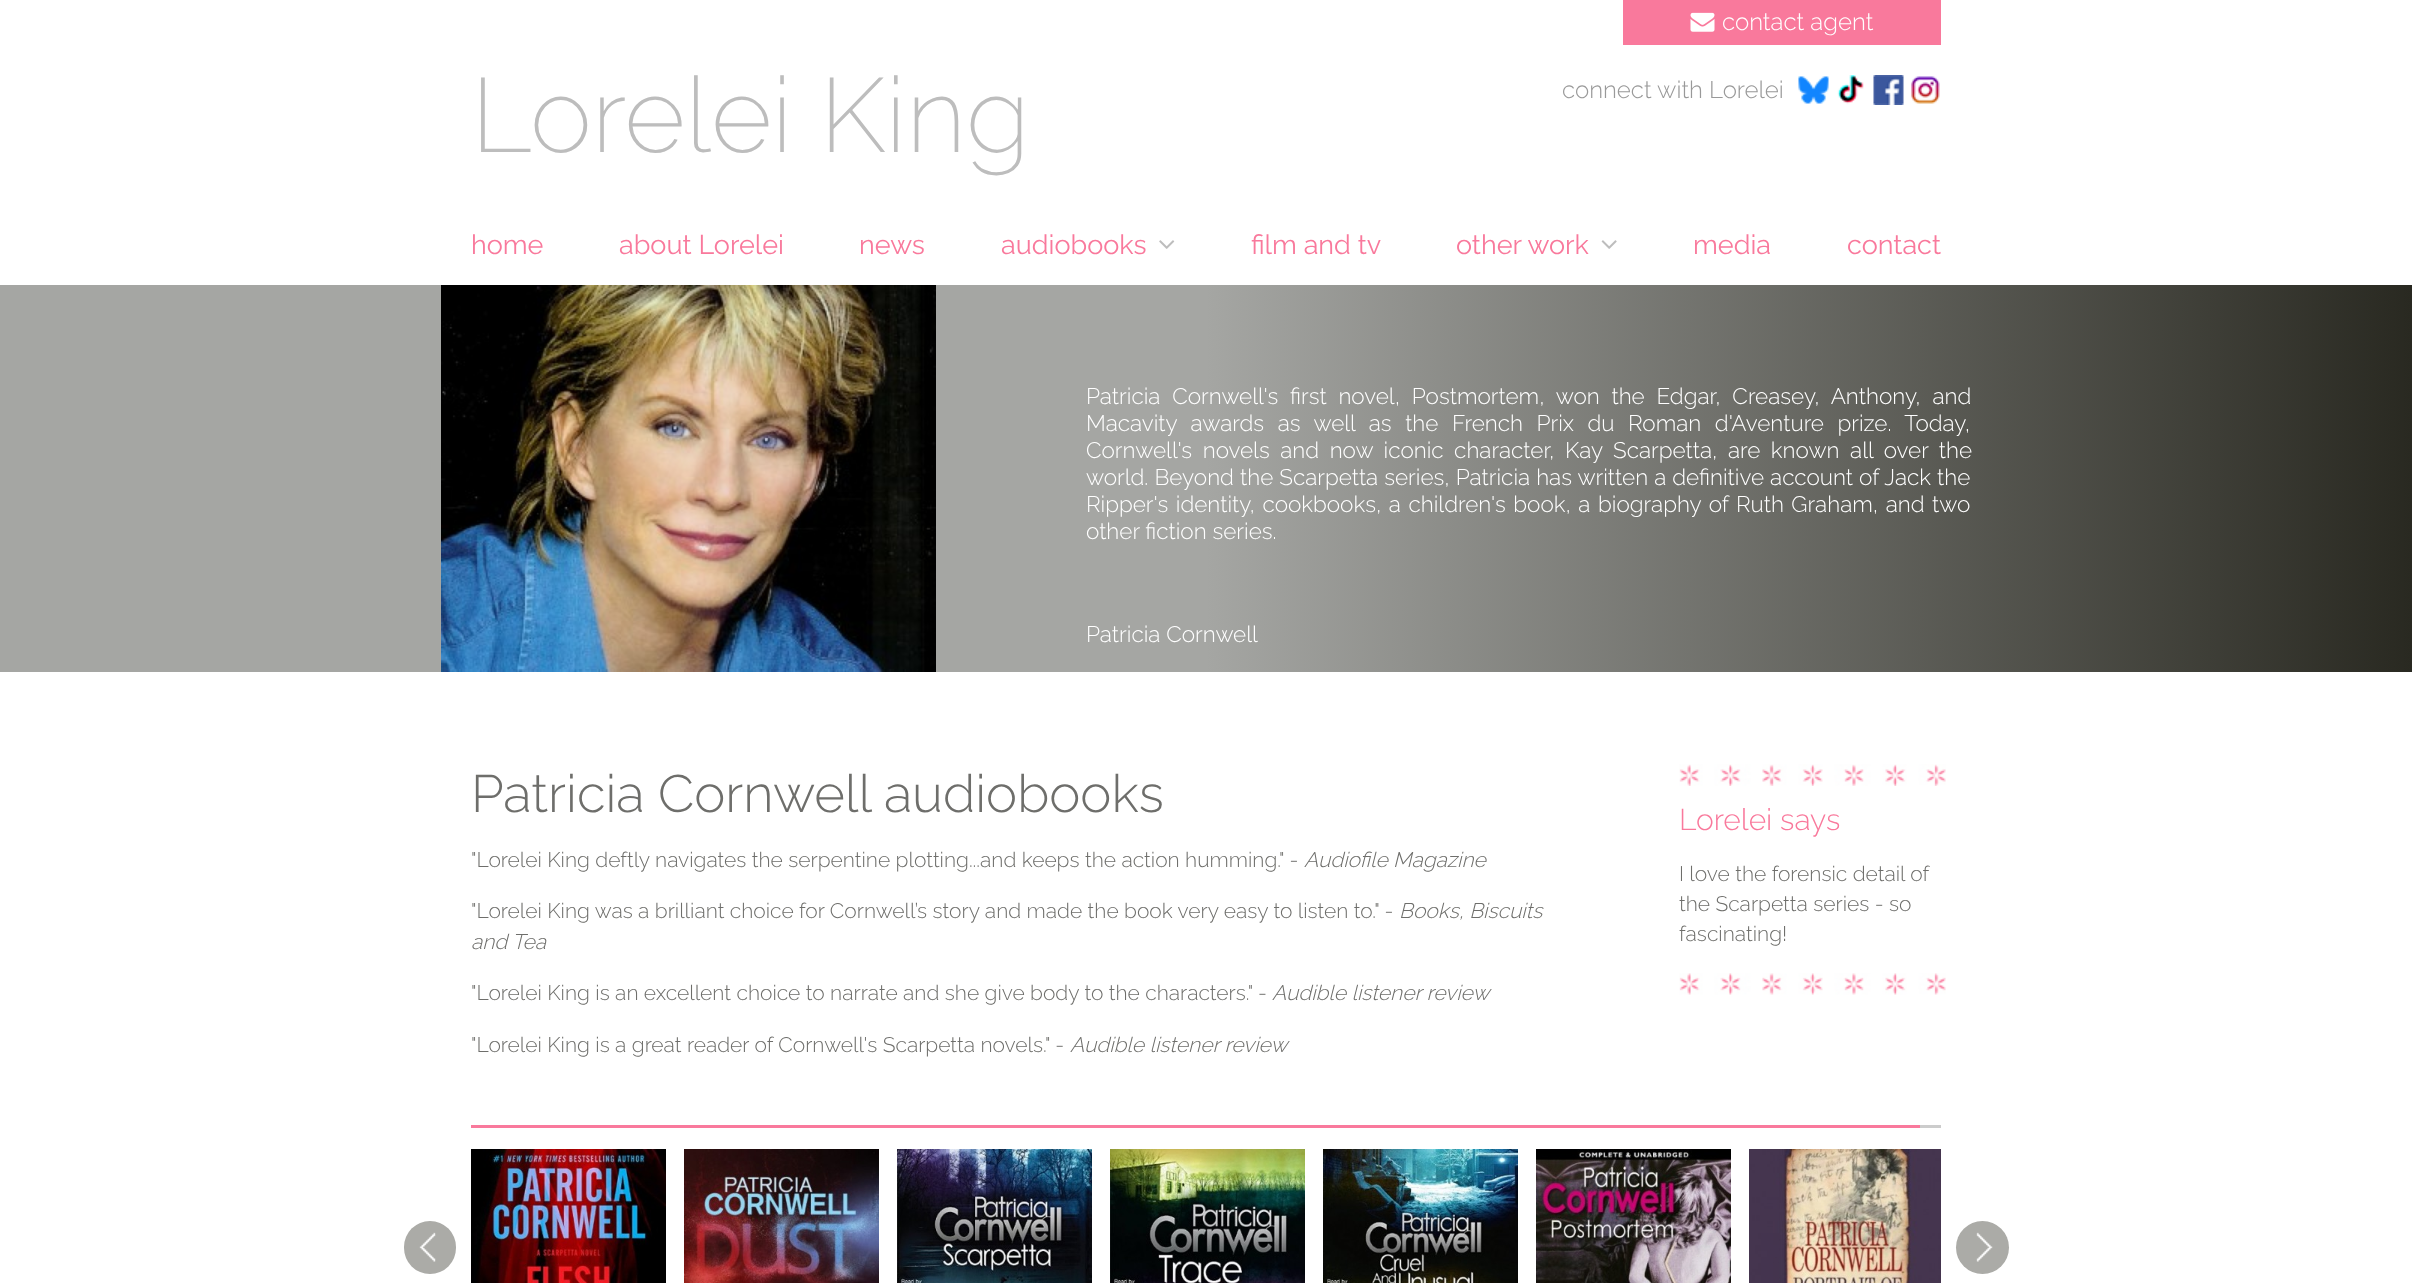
<!DOCTYPE html>
<meta charset="utf-8">
<style>body { margin: 0 } canvas { display: block }</style>
<canvas id="canvas" width="2412" height="1283"></canvas>
<script type="module">
  const canvas = document.getElementById("canvas");
  const ctx = canvas.getContext("2d");
  ctx.miterLimit = 4;
  ctx.fontKerning = "normal";
  async function loadImage(src) {
    const img = new Image();
    img.src = src;
    await img.decode();
    return img;
  }
  let gradient;

  ctx.fillStyle = "#ffffff";
  ctx.fillRect(0, 0, 2412, 1283);
  ctx.fillStyle = "#f9799c";
  ctx.fillRect(1623, 0, 318, 45);
  ctx.drawImage(await loadImage("img1.png"), 1690, 12, 25, 20);
  ctx.font = "300 24px Raleway";
  ctx.fillStyle = "#ffffff";
  ctx.fillText("contact agent", 1722, 30);
  ctx.font = "200 105px Raleway";
  ctx.fillStyle = "#bdbdbd";
  ctx.fillText("Lorelei King", 471, 152);
  ctx.font = "300 24px Raleway";
  ctx.fillStyle = "#999999";
  ctx.fillText("connect with Lorelei", 1562, 98);
  ctx.drawImage(await loadImage("img2.png"), 1798, 76, 31, 28);
  ctx.drawImage(await loadImage("img3.png"), 1837, 75, 27, 30);
  ctx.drawImage(await loadImage("img4.png"), 1873, 75, 31, 30);
  ctx.drawImage(await loadImage("img5.png"), 1911, 76, 29, 28);
  ctx.font = "27px Raleway";
  ctx.fillStyle = "#f9799c";
  ctx.fillText("home", 471, 254);
  ctx.fillText("about Lorelei", 619, 254);
  ctx.fillText("news", 859, 254);
  ctx.fillText("audiobooks", 1001, 254);
  ctx.drawImage(await loadImage("img6.png"), 1159, 240, 16, 9);
  ctx.fillText("film and tv", 1251, 254);
  ctx.fillText("other work", 1456, 254);
  ctx.drawImage(await loadImage("img7.png"), 1601, 240, 16, 9);
  ctx.fillText("media", 1693, 254);
  ctx.fillText("contact", 1847, 254);
  gradient = ctx.createLinearGradient(0, 479, 2412, 478);
  gradient.addColorStop(0.5, "#a5a6a3");
  gradient.addColorStop(1, "#292921");
  ctx.fillStyle = gradient;
  ctx.fillRect(0, 285, 2412, 387);
  ctx.drawImage(await loadImage("img8.png"), 441, 285, 495, 387);
  ctx.wordSpacing = "6px";
  ctx.font = "300 22.5px Raleway";
  ctx.fillStyle = "#ffffff";
  ctx.fillText("Patricia Cornwell's first novel, Postmortem, won the Edgar, Creasey, Anthony, and", 1086, 404);
  ctx.wordSpacing = "7.75px";
  ctx.fillText("Macavity awards as well as the French Prix du Roman d'Aventure prize. Today,", 1086, 431);
  ctx.wordSpacing = "4.75px";
  ctx.fillText("Cornwell's novels and now iconic character, Kay Scarpetta, are known all over the", 1086, 458);
  ctx.wordSpacing = "0.25px";
  ctx.fillText("world. Beyond the Scarpetta series, Patricia has written a definitive account of Jack the", 1086, 485);
  ctx.wordSpacing = "1.75px";
  ctx.fillText("Ripper's identity, cookbooks, a children's book, a biography of Ruth Graham, and two", 1086, 512);
  ctx.wordSpacing = "0px";
  ctx.fillText("other fiction series.", 1086, 539);
  ctx.fillText("Patricia Cornwell", 1086, 642);
  ctx.font = "300 52.5px Raleway";
  ctx.fillStyle = "#6e6e6b";
  ctx.fillText("Patricia Cornwell audiobooks", 471, 812);
  ctx.font = "300 21px Raleway";
  ctx.fillText("\"Lorelei King deftly navigates the serpentine plotting...and keeps the action humming.\" -", 471, 867);
  ctx.font = "italic 300 21px Raleway";
  ctx.fillText("Audiofile Magazine", 1304, 867);
  ctx.font = "300 21px Raleway";
  ctx.fillText("\"Lorelei King was a brilliant choice for Cornwell’s story and made the book very easy to listen to.\" -", 471, 918);
  ctx.font = "italic 300 21px Raleway";
  ctx.fillText("Books, Biscuits", 1399, 918);
  ctx.fillText("and Tea", 471, 949);
  ctx.font = "300 21px Raleway";
  ctx.fillText("\"Lorelei King is an excellent choice to narrate and she give body to the characters.\" -", 471, 1000);
  ctx.font = "italic 300 21px Raleway";
  ctx.fillText("Audible listener review", 1272, 1000);
  ctx.font = "300 21px Raleway";
  ctx.fillText("\"Lorelei King is a great reader of Cornwell's Scarpetta novels.\" -", 471, 1052);
  ctx.font = "italic 300 21px Raleway";
  ctx.fillText("Audible listener review", 1070, 1052);
  ctx.drawImage(await loadImage("img9.png"), 1679, 764, 267, 22);
  ctx.font = "300 30px Raleway";
  ctx.fillStyle = "#f9799c";
  ctx.fillText("Lorelei says", 1679, 830);
  ctx.font = "300 21px Raleway";
  ctx.fillStyle = "#6e6e6b";
  ctx.fillText("I love the forensic detail of", 1679, 881);
  ctx.fillText("the Scarpetta series - so", 1679, 911);
  ctx.fillText("fascinating!", 1679, 941);
  ctx.drawImage(await loadImage("img10.png"), 1679, 973, 267, 22);
  ctx.fillStyle = "#cccccc";
  ctx.fillRect(1920, 1125, 21, 3);
  ctx.fillStyle = "#f9799c";
  ctx.fillRect(471, 1125, 1449, 3);
  ctx.fillStyle = "#ababa7";
  ctx.beginPath();
  ctx.roundRect(404, 1221, 52, 53, 26);
  ctx.fill();
  ctx.drawImage(await loadImage("img11.png"), 419, 1232, 17, 30);
  ctx.drawImage(await loadImage("img12.png"), 471, 1149, 195, 134);
  ctx.drawImage(await loadImage("img13.png"), 684, 1149, 195, 134);
  ctx.drawImage(await loadImage("img14.png"), 897, 1149, 195, 134);
  ctx.drawImage(await loadImage("img15.png"), 1110, 1149, 195, 134);
  ctx.drawImage(await loadImage("img16.png"), 1323, 1149, 195, 134);
  ctx.drawImage(await loadImage("img17.png"), 1536, 1149, 195, 134);
  ctx.drawImage(await loadImage("img18.png"), 1749, 1149, 192, 134);
  ctx.beginPath();
  ctx.arc(1982.5, 1247.5, 26.5, 0, Math.PI * 2);
  ctx.fill();
  ctx.drawImage(await loadImage("img19.png"), 1976, 1232, 17, 30);
</script>
